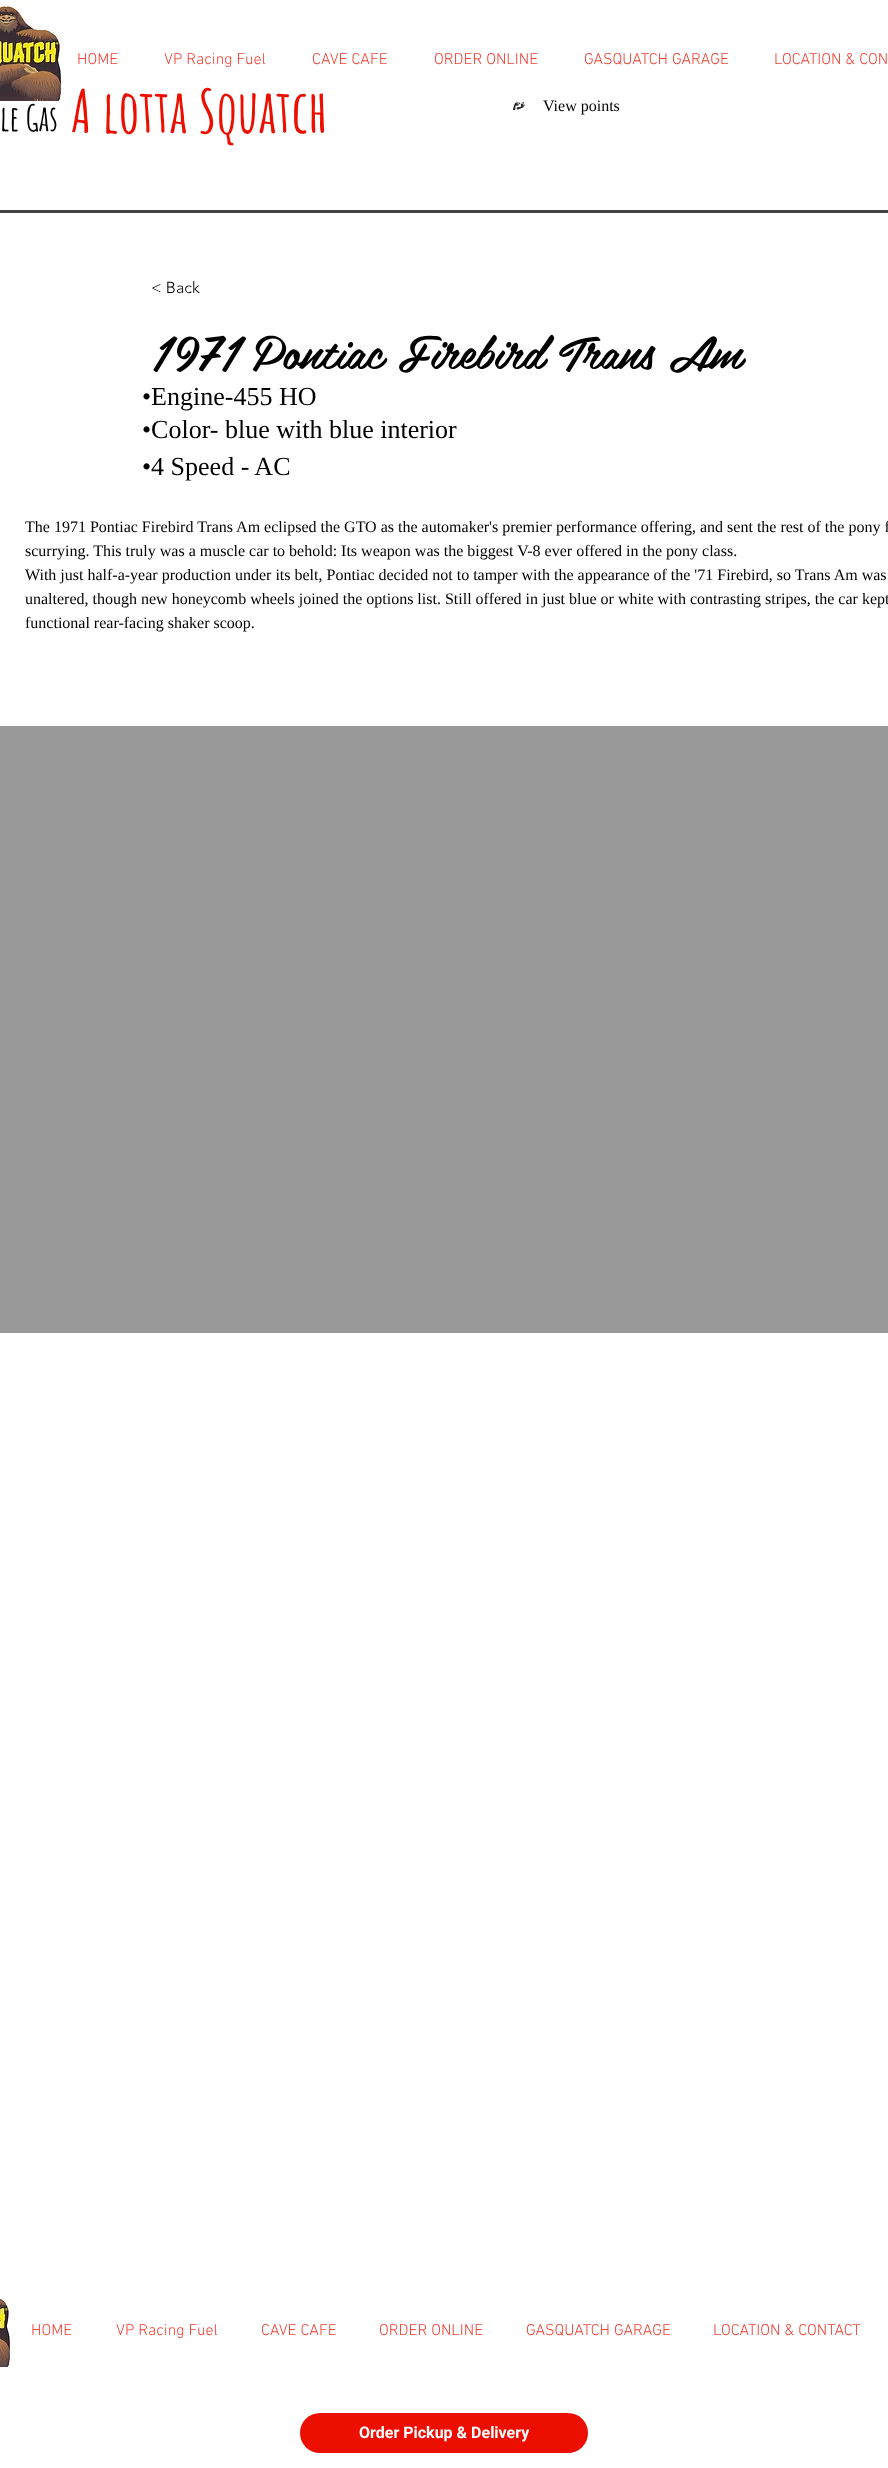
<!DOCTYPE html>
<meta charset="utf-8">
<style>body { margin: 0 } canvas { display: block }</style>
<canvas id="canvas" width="888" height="2468"></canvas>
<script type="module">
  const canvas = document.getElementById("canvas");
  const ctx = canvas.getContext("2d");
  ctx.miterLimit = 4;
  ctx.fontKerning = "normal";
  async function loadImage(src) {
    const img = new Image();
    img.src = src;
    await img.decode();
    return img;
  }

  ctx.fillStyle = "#ffffff";
  ctx.fillRect(0, 0, 888, 2468);
  ctx.drawImage(await loadImage("img1.png"), 0, 0, 64, 101);
  ctx.font = "300 16px 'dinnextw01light'";
  ctx.fillStyle = "#ef4135";
  ctx.fillText("HOME", 77, 64);
  ctx.fillText("VP Racing Fuel", 164, 64);
  ctx.fillText("CAVE CAFE", 312, 64);
  ctx.fillText("ORDER ONLINE", 434, 64);
  ctx.fillText("GASQUATCH GARAGE", 584, 64);
  ctx.fillText("LOCATION & CON", 774, 64);
  ctx.font = "bold 35px Amatic SC";
  ctx.fillStyle = "#000000";
  ctx.fillText("le Gas", 0, 131);
  ctx.font = "bold 59px Amatic SC";
  ctx.fillStyle = "#ec0f00";
  ctx.fillText("A lotta Squatch", 71, 133);
  ctx.drawImage(await loadImage("img2.png"), 513, 101, 12, 10);
  ctx.font = "16px Liberation Serif";
  ctx.fillStyle = "#000000";
  ctx.fillText("View points", 543, 111);
  ctx.fillStyle = "#424242";
  ctx.fillRect(0, 210, 888, 3);
  ctx.font = "300 16px 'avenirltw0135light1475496'";
  ctx.fillStyle = "#000000";
  ctx.fillText("< Back", 151, 293);
  ctx.font = "46px 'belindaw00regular'";
  ctx.fillText("1971 Pontiac Firebird Trans Am", 151, 369);
  ctx.font = "26px Liberation Serif";
  ctx.fillText("•Engine-455 HO", 142, 405);
  ctx.fillText("•Color- blue with blue interior", 142, 438);
  ctx.fillText("•4 Speed - AC", 142, 475);
  ctx.font = "16px Liberation Serif";
  ctx.fillText("The 1971 Pontiac Firebird Trans Am eclipsed the GTO as the automaker's premier performance offering, and sent the rest of the pony f", 25, 532);
  ctx.fillText("scurrying. This truly was a muscle car to behold: Its weapon was the biggest V-8 ever offered in the pony class.", 25, 556);
  ctx.fillText("With just half-a-year production under its belt, Pontiac decided not to tamper with the appearance of the '71 Firebird, so Trans Am was", 25, 580);
  ctx.fillText("unaltered, though new honeycomb wheels joined the options list. Still offered in just blue or white with contrasting stripes, the car kept", 25, 604);
  ctx.fillText("functional rear-facing shaker scoop.", 25, 628);
  ctx.fillStyle = "#999999";
  ctx.fillRect(0, 726, 888, 607);
  ctx.drawImage(await loadImage("img3.png"), 0, 2294, 13, 73);
  ctx.font = "300 16px 'dinnextw01light'";
  ctx.fillStyle = "#ef4135";
  ctx.fillText("HOME", 31, 2335);
  ctx.fillText("VP Racing Fuel", 116, 2335);
  ctx.fillText("CAVE CAFE", 261, 2335);
  ctx.fillText("ORDER ONLINE", 379, 2335);
  ctx.fillText("GASQUATCH GARAGE", 526, 2335);
  ctx.fillText("LOCATION & CONTACT", 713, 2335);
  ctx.fillStyle = "#ec0f00";
  ctx.beginPath();
  ctx.roundRect(300, 2413, 288, 40, 20);
  ctx.fill();
  ctx.font = "bold 16px Roboto";
  ctx.fillStyle = "#ffffff";
  ctx.fillText("Order Pickup & Delivery", 359, 2438);
</script>
